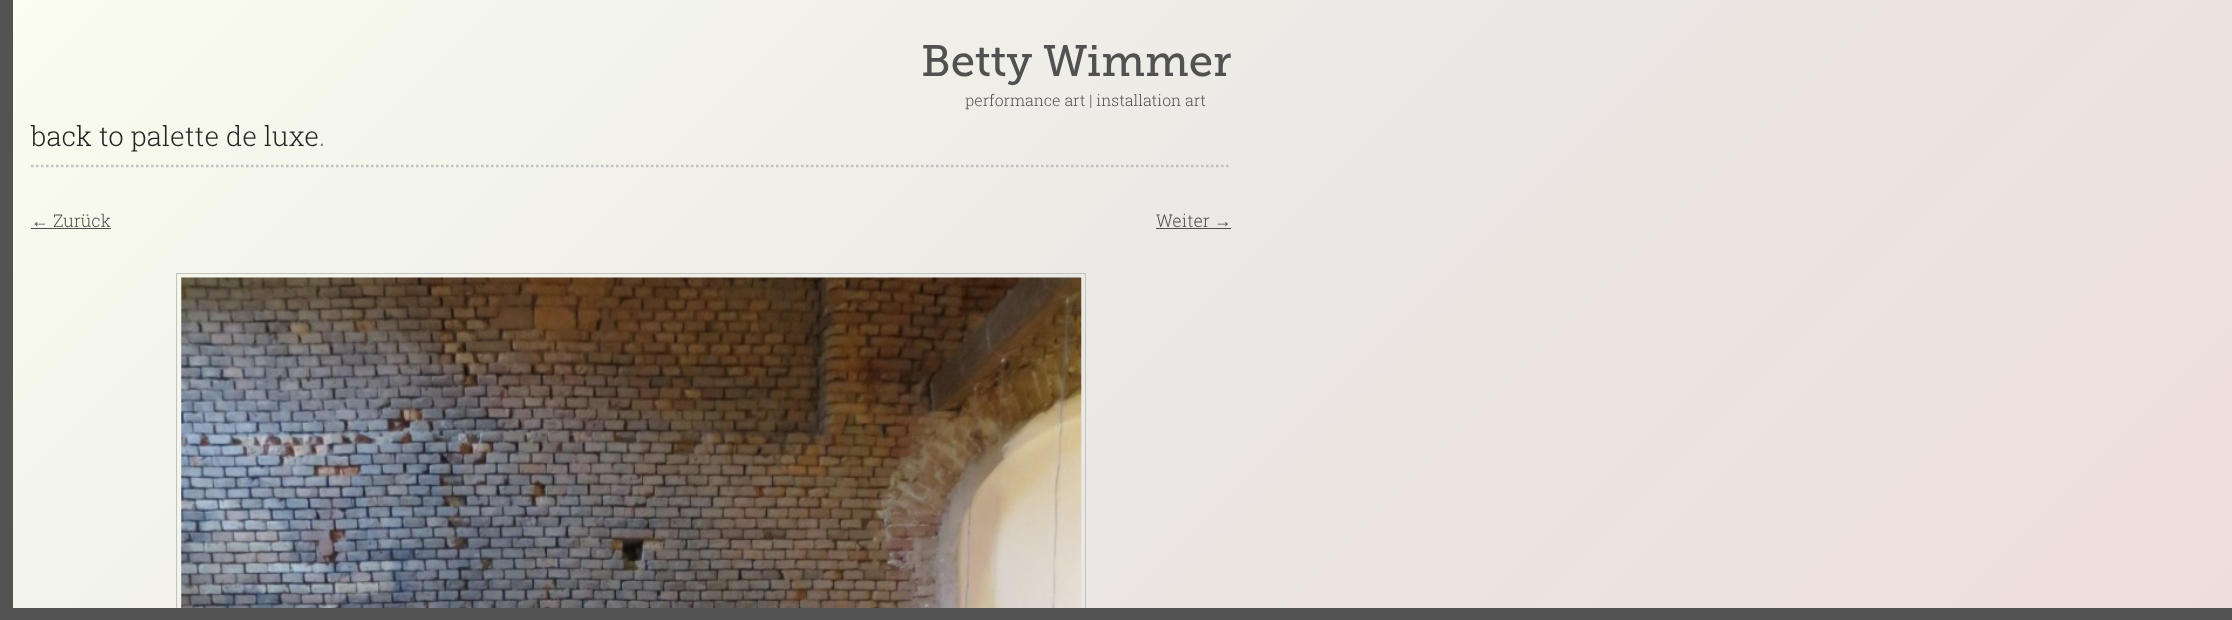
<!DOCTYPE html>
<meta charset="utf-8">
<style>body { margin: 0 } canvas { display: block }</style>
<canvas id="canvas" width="2232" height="620"></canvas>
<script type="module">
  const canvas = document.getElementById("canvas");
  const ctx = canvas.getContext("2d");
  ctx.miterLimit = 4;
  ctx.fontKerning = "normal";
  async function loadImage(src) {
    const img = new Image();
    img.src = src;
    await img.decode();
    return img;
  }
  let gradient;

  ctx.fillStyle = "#ffffff";
  ctx.fillRect(0, 0, 2232, 620);
  gradient = ctx.createLinearGradient(403, -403, 1829, 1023);
  gradient.addColorStop(0, "#fafdef");
  gradient.addColorStop(0.5, "#ebe9e5");
  gradient.addColorStop(1, "#eedddc");
  ctx.fillStyle = gradient;
  ctx.fillRect(13, 0, 2219, 608);
  ctx.fillStyle = "#545353";
  ctx.fillRect(0, 0, 13, 608);
  ctx.font = "43.75px Museo Slab";
  ctx.fillStyle = "#515151";
  ctx.fillText("Betty Wimmer", 921, 76);
  ctx.font = "300 15.75px Roboto Slab";
  ctx.fillText("performance art | installation art", 965, 106);
  ctx.beginPath();
  ctx.moveTo(31, 166);
  ctx.lineTo(1231, 166);
  ctx.strokeStyle = "#c2c2c1";
  ctx.lineWidth = 2.5;
  ctx.setLineDash([2.5, 2.5]);
  ctx.stroke();
  ctx.font = "300 27.5px Roboto Slab";
  ctx.fillStyle = "#262626";
  ctx.fillText("back to palette de luxe", 31, 146);
  ctx.fillStyle = "#757575";
  ctx.fillText(".", 319, 146);
  ctx.font = "17.5px Liberation Sans";
  ctx.fillStyle = "#515151";
  ctx.fillText("←", 31, 227);
  ctx.fillStyle = "#4e4e4e";
  ctx.fillRect(31, 228, 80, 1);
  ctx.font = "300 17.5px Roboto Slab";
  ctx.fillStyle = "#515151";
  ctx.fillText("Zurück", 53, 227);
  ctx.fillText("Weiter", 1156, 227);
  ctx.font = "17.5px Liberation Sans";
  ctx.fillText("→", 1214, 227);
  ctx.fillStyle = "#4e4e4e";
  ctx.fillRect(1156, 228, 75, 1);
  ctx.lineWidth = 1;
  ctx.setLineDash([]);
  ctx.strokeRect(176.5, 273.5, 909, 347);
  ctx.drawImage(await loadImage("img1.png"), 181, 277, 901, 331);
  ctx.fillStyle = "#545353";
  ctx.fillRect(0, 608, 2232, 12);
</script>
